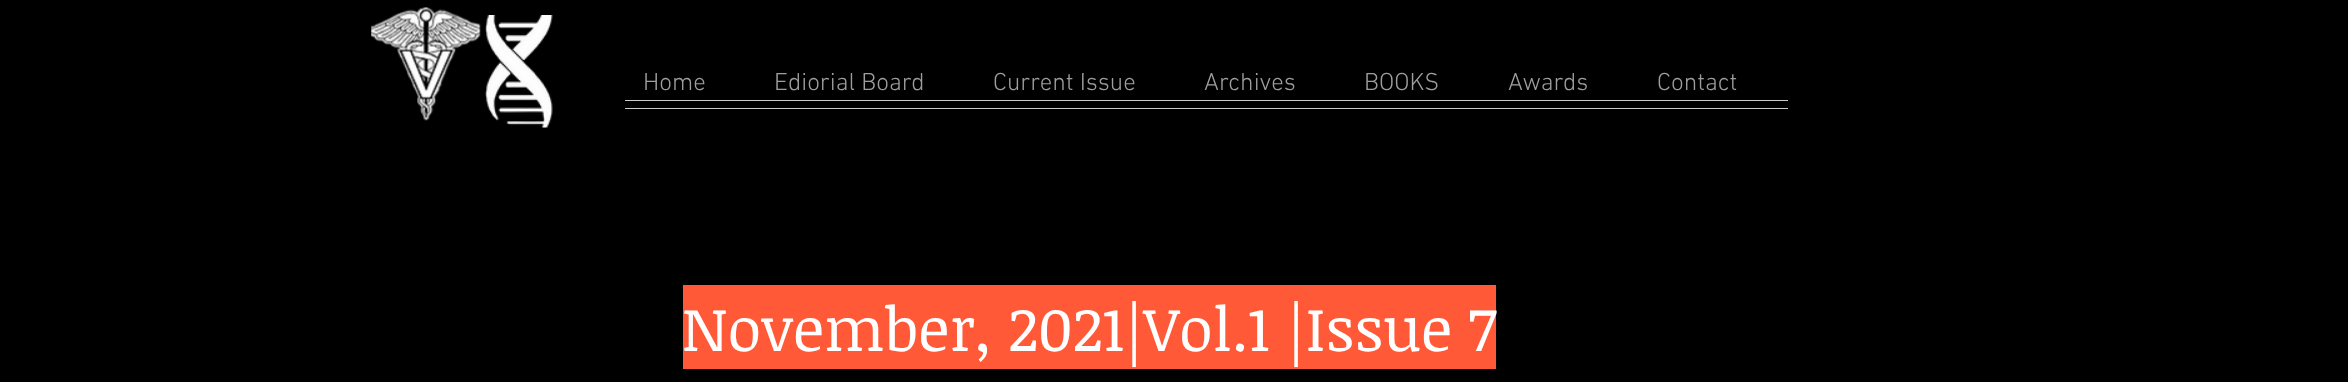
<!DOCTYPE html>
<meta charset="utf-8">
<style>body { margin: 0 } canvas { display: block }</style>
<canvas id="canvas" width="2348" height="382"></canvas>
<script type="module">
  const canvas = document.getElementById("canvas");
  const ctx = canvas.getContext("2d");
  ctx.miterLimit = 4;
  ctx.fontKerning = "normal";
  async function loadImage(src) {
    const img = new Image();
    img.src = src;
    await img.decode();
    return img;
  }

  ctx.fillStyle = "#000000";
  ctx.fillRect(0, 0, 2348, 382);
  ctx.drawImage(await loadImage("img1.png"), 371, 7, 110, 114);
  ctx.drawImage(await loadImage("img2.png"), 485, 15, 68, 113);
  ctx.font = "300 25px 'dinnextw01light'";
  ctx.fillStyle = "#9e9e9e";
  ctx.fillText("Home", 643, 90);
  ctx.fillStyle = "#cccccc";
  ctx.fillRect(625, 108, 1163, 1);
  ctx.fillStyle = "#9e9e9e";
  ctx.fillText("Ediorial Board", 774, 90);
  ctx.fillText("Current Issue", 993, 90);
  ctx.fillText("Archives", 1204, 90);
  ctx.fillText("BOOKS", 1364, 90);
  ctx.fillText("Awards", 1508, 90);
  ctx.fillText("Contact", 1657, 90);
  ctx.fillStyle = "#cccccc";
  ctx.fillRect(625, 100, 1163, 1);
  ctx.fillStyle = "#ff5937";
  ctx.fillRect(683, 285, 813, 84);
  ctx.font = "61.25px Noticia Text";
  ctx.fillStyle = "#ffffff";
  ctx.fillText("November, 2021|Vol.1 |Issue 7", 682, 351);
</script>
